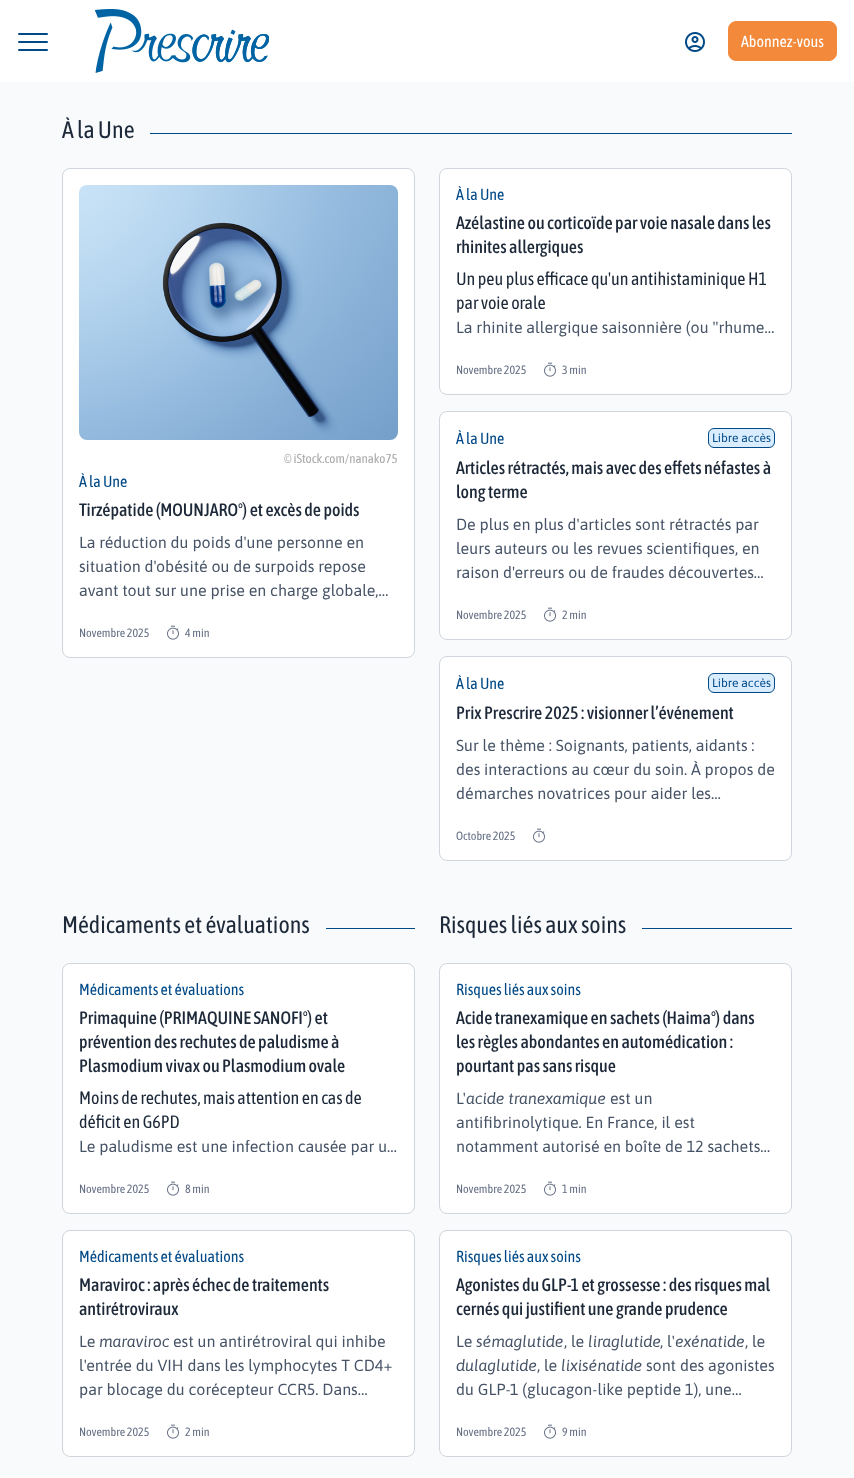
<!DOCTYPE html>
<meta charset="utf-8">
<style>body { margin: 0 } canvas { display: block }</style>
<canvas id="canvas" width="854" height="1478"></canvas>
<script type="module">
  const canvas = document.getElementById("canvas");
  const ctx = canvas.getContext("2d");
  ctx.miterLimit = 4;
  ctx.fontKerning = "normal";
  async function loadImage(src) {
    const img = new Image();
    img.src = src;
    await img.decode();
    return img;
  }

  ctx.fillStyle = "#f9fafb";
  ctx.fillRect(0, 0, 854, 1478);
  ctx.fillStyle = "#ffffff";
  ctx.fillRect(0, 0, 854, 82);
  ctx.fillStyle = "#004987";
  ctx.beginPath();
  ctx.roundRect(18, 33, 30, 2, 1);
  ctx.fill();
  ctx.beginPath();
  ctx.roundRect(18, 41, 30, 2, 1);
  ctx.fill();
  ctx.beginPath();
  ctx.roundRect(18, 49, 30, 2, 1);
  ctx.fill();
  ctx.drawImage(await loadImage("img1.png"), 95, 9, 174, 64);
  ctx.drawImage(await loadImage("img2.png"), 685, 32, 20, 20);
  ctx.fillStyle = "#f38a3b";
  ctx.beginPath();
  ctx.roundRect(728.5, 21.5, 108, 39, 7.5);
  ctx.fill();
  ctx.strokeStyle = "#f38a3b";
  ctx.stroke();
  ctx.font = "16px Asap Condensed";
  ctx.fillStyle = "#ffffff";
  ctx.fillText("Abonnez-vous", 741, 47);
  ctx.font = "24px Asap Condensed";
  ctx.fillStyle = "#1d2939";
  ctx.fillText("À la Une", 62, 138);
  ctx.fillStyle = "#004987";
  ctx.fillRect(150, 133, 642, 1);
  ctx.fillStyle = "#ffffff";
  ctx.beginPath();
  ctx.roundRect(62.5, 168.5, 352, 489, 7.5);
  ctx.fill();
  ctx.strokeStyle = "#d0d5dd";
  ctx.stroke();
  ctx.drawImage(await loadImage("img3.png"), 79, 185, 319, 255);
  ctx.font = "13px Asap Condensed";
  ctx.fillStyle = "#a9a9a9";
  ctx.fillText("© iStock.com/nanako75", 284, 463);
  ctx.font = "16px Asap Condensed";
  ctx.fillStyle = "#004987";
  ctx.fillText("À la Une", 79, 487);
  ctx.font = "500 18px Asap Condensed";
  ctx.fillStyle = "#1d2939";
  ctx.fillText("Tirzépatide (MOUNJARO°) et excès de poids", 79, 516);
  ctx.font = "16px Asap";
  ctx.fillStyle = "#475467";
  ctx.fillText("La réduction du poids d'une personne en", 79, 548);
  ctx.fillText("situation d'obésité ou de surpoids repose", 79, 572);
  ctx.fillText("avant tout sur une prise en charge globale,…", 79, 596);
  ctx.font = "12px Asap Condensed";
  ctx.fillStyle = "#667085";
  ctx.fillText("Novembre 2025", 79, 637);
  ctx.drawImage(await loadImage("img4.png"), 167, 625, 12, 15);
  ctx.fillText("4 min", 185, 637);
  ctx.fillStyle = "#ffffff";
  ctx.beginPath();
  ctx.roundRect(439.5, 168.5, 352, 226, 7.5);
  ctx.fill();
  ctx.stroke();
  ctx.font = "16px Asap Condensed";
  ctx.fillStyle = "#004987";
  ctx.fillText("À la Une", 456, 200);
  ctx.font = "500 18px Asap Condensed";
  ctx.fillStyle = "#1d2939";
  ctx.fillText("Azélastine ou corticoïde par voie nasale dans les", 456, 229);
  ctx.fillText("rhinites allergiques", 456, 253);
  ctx.font = "18px Asap Condensed";
  ctx.fillText("Un peu plus efficace qu'un antihistaminique H1", 456, 285);
  ctx.fillText("par voie orale", 456, 309);
  ctx.font = "16px Asap";
  ctx.fillStyle = "#475467";
  ctx.fillText("La rhinite allergique saisonnière (ou \"rhume…", 456, 333);
  ctx.font = "12px Asap Condensed";
  ctx.fillStyle = "#667085";
  ctx.fillText("Novembre 2025", 456, 374);
  ctx.drawImage(await loadImage("img4.png"), 544, 362, 12, 15);
  ctx.fillText("3 min", 562, 374);
  ctx.fillStyle = "#ffffff";
  ctx.beginPath();
  ctx.roundRect(439.5, 411.5, 352, 228, 7.5);
  ctx.fill();
  ctx.stroke();
  ctx.font = "16px Asap Condensed";
  ctx.fillStyle = "#004987";
  ctx.fillText("À la Une", 456, 444);
  ctx.fillStyle = "#d9edff";
  ctx.beginPath();
  ctx.roundRect(708.5, 428.5, 66, 19, 5.5);
  ctx.fill();
  ctx.strokeStyle = "#004987";
  ctx.stroke();
  ctx.font = "12px Asap";
  ctx.fillStyle = "#004987";
  ctx.fillText("Libre accès", 712, 442);
  ctx.font = "500 18px Asap Condensed";
  ctx.fillStyle = "#1d2939";
  ctx.fillText("Articles rétractés, mais avec des effets néfastes à", 456, 474);
  ctx.fillText("long terme", 456, 498);
  ctx.font = "16px Asap";
  ctx.fillStyle = "#475467";
  ctx.fillText("De plus en plus d'articles sont rétractés par", 456, 530);
  ctx.fillText("leurs auteurs ou les revues scientifiques, en", 456, 554);
  ctx.fillText("raison d'erreurs ou de fraudes découvertes…", 456, 578);
  ctx.font = "12px Asap Condensed";
  ctx.fillStyle = "#667085";
  ctx.fillText("Novembre 2025", 456, 619);
  ctx.drawImage(await loadImage("img4.png"), 544, 607, 12, 15);
  ctx.fillText("2 min", 562, 619);
  ctx.fillStyle = "#ffffff";
  ctx.beginPath();
  ctx.roundRect(439.5, 656.5, 352, 204, 7.5);
  ctx.fill();
  ctx.strokeStyle = "#d0d5dd";
  ctx.stroke();
  ctx.font = "16px Asap Condensed";
  ctx.fillStyle = "#004987";
  ctx.fillText("À la Une", 456, 689);
  ctx.fillStyle = "#d9edff";
  ctx.beginPath();
  ctx.roundRect(708.5, 673.5, 66, 19, 5.5);
  ctx.fill();
  ctx.strokeStyle = "#004987";
  ctx.stroke();
  ctx.font = "12px Asap";
  ctx.fillStyle = "#004987";
  ctx.fillText("Libre accès", 712, 687);
  ctx.font = "500 18px Asap Condensed";
  ctx.fillStyle = "#1d2939";
  ctx.fillText("Prix Prescrire 2025 : visionner l’événement", 456, 719);
  ctx.font = "16px Asap";
  ctx.fillStyle = "#475467";
  ctx.fillText("Sur le thème : Soignants, patients, aidants :", 456, 751);
  ctx.fillText("des interactions au cœur du soin. À propos de", 456, 775);
  ctx.fillText("démarches novatrices pour aider les…", 456, 799);
  ctx.font = "12px Asap Condensed";
  ctx.fillStyle = "#667085";
  ctx.fillText("Octobre 2025", 456, 840);
  ctx.drawImage(await loadImage("img4.png"), 533, 828, 12, 15);
  ctx.font = "24px Asap Condensed";
  ctx.fillStyle = "#1d2939";
  ctx.fillText("Médicaments et évaluations", 62, 933);
  ctx.fillStyle = "#004987";
  ctx.fillRect(326, 928, 89, 1);
  ctx.fillStyle = "#ffffff";
  ctx.beginPath();
  ctx.roundRect(62.5, 963.5, 352, 250, 7.5);
  ctx.fill();
  ctx.strokeStyle = "#d0d5dd";
  ctx.stroke();
  ctx.font = "16px Asap Condensed";
  ctx.fillStyle = "#004987";
  ctx.fillText("Médicaments et évaluations", 79, 995);
  ctx.font = "500 18px Asap Condensed";
  ctx.fillStyle = "#1d2939";
  ctx.fillText("Primaquine (PRIMAQUINE SANOFI°) et", 79, 1024);
  ctx.fillText("prévention des rechutes de paludisme à", 79, 1048);
  ctx.fillText("Plasmodium vivax ou Plasmodium ovale", 79, 1072);
  ctx.font = "18px Asap Condensed";
  ctx.fillText("Moins de rechutes, mais attention en cas de", 79, 1104);
  ctx.fillText("déficit en G6PD", 79, 1128);
  ctx.font = "16px Asap";
  ctx.fillStyle = "#475467";
  ctx.fillText("Le paludisme est une infection causée par u…", 79, 1152);
  ctx.font = "12px Asap Condensed";
  ctx.fillStyle = "#667085";
  ctx.fillText("Novembre 2025", 79, 1193);
  ctx.drawImage(await loadImage("img4.png"), 167, 1181, 12, 15);
  ctx.fillText("8 min", 185, 1193);
  ctx.fillStyle = "#ffffff";
  ctx.beginPath();
  ctx.roundRect(62.5, 1230.5, 352, 226, 7.5);
  ctx.fill();
  ctx.stroke();
  ctx.font = "16px Asap Condensed";
  ctx.fillStyle = "#004987";
  ctx.fillText("Médicaments et évaluations", 79, 1262);
  ctx.font = "500 18px Asap Condensed";
  ctx.fillStyle = "#1d2939";
  ctx.fillText("Maraviroc : après échec de traitements", 79, 1291);
  ctx.fillText("antirétroviraux", 79, 1315);
  ctx.font = "16px Asap";
  ctx.fillStyle = "#475467";
  ctx.fillText("Le", 79, 1347);
  ctx.font = "italic 16px Asap";
  ctx.fillText("maraviroc", 99, 1347);
  ctx.font = "16px Asap";
  ctx.fillText("est un antirétroviral qui inhibe", 173, 1347);
  ctx.fillText("l'entrée du VIH dans les lymphocytes T CD4+", 79, 1371);
  ctx.fillText("par blocage du corécepteur CCR5. Dans…", 79, 1395);
  ctx.font = "12px Asap Condensed";
  ctx.fillStyle = "#667085";
  ctx.fillText("Novembre 2025", 79, 1436);
  ctx.drawImage(await loadImage("img4.png"), 167, 1424, 12, 15);
  ctx.fillText("2 min", 185, 1436);
  ctx.font = "24px Asap Condensed";
  ctx.fillStyle = "#1d2939";
  ctx.fillText("Risques liés aux soins", 439, 933);
  ctx.fillStyle = "#004987";
  ctx.fillRect(642, 928, 150, 1);
  ctx.fillStyle = "#ffffff";
  ctx.beginPath();
  ctx.roundRect(439.5, 963.5, 352, 250, 7.5);
  ctx.fill();
  ctx.stroke();
  ctx.font = "16px Asap Condensed";
  ctx.fillStyle = "#004987";
  ctx.fillText("Risques liés aux soins", 456, 995);
  ctx.font = "500 18px Asap Condensed";
  ctx.fillStyle = "#1d2939";
  ctx.fillText("Acide tranexamique en sachets (Haima°) dans", 456, 1024);
  ctx.fillText("les règles abondantes en automédication :", 456, 1048);
  ctx.fillText("pourtant pas sans risque", 456, 1072);
  ctx.font = "16px Asap";
  ctx.fillStyle = "#475467";
  ctx.fillText("L'", 456, 1104);
  ctx.font = "italic 16px Asap";
  ctx.fillText("acide tranexamique", 466, 1104);
  ctx.font = "16px Asap";
  ctx.fillText("est un", 610, 1104);
  ctx.fillText("antifibrinolytique. En France, il est", 456, 1128);
  ctx.fillText("notamment autorisé en boîte de 12 sachets…", 456, 1152);
  ctx.font = "12px Asap Condensed";
  ctx.fillStyle = "#667085";
  ctx.fillText("Novembre 2025", 456, 1193);
  ctx.drawImage(await loadImage("img4.png"), 544, 1181, 12, 15);
  ctx.fillText("1 min", 562, 1193);
  ctx.fillStyle = "#ffffff";
  ctx.beginPath();
  ctx.roundRect(439.5, 1230.5, 352, 226, 7.5);
  ctx.fill();
  ctx.stroke();
  ctx.font = "16px Asap Condensed";
  ctx.fillStyle = "#004987";
  ctx.fillText("Risques liés aux soins", 456, 1262);
  ctx.font = "500 18px Asap Condensed";
  ctx.fillStyle = "#1d2939";
  ctx.fillText("Agonistes du GLP-1 et grossesse : des risques mal", 456, 1291);
  ctx.fillText("cernés qui justifient une grande prudence", 456, 1315);
  ctx.font = "16px Asap";
  ctx.fillStyle = "#475467";
  ctx.fillText("Le", 456, 1347);
  ctx.font = "italic 16px Asap";
  ctx.fillText("sémaglutide", 476, 1347);
  ctx.font = "16px Asap";
  ctx.fillText(", le", 564, 1347);
  ctx.font = "italic 16px Asap";
  ctx.fillText("liraglutide", 588, 1347);
  ctx.font = "16px Asap";
  ctx.fillText(", l'", 660, 1347);
  ctx.font = "italic 16px Asap";
  ctx.fillText("exénatide", 675, 1347);
  ctx.font = "16px Asap";
  ctx.fillText(", le", 745, 1347);
  ctx.font = "italic 16px Asap";
  ctx.fillText("dulaglutide", 456, 1371);
  ctx.font = "16px Asap";
  ctx.fillText(", le", 537, 1371);
  ctx.font = "italic 16px Asap";
  ctx.fillText("lixisénatide", 561, 1371);
  ctx.font = "16px Asap";
  ctx.fillText("sont des agonistes", 646, 1371);
  ctx.fillText("du GLP-1 (glucagon-like peptide 1), une…", 456, 1395);
  ctx.font = "12px Asap Condensed";
  ctx.fillStyle = "#667085";
  ctx.fillText("Novembre 2025", 456, 1436);
  ctx.drawImage(await loadImage("img4.png"), 544, 1424, 12, 15);
  ctx.fillText("9 min", 562, 1436);
</script>
